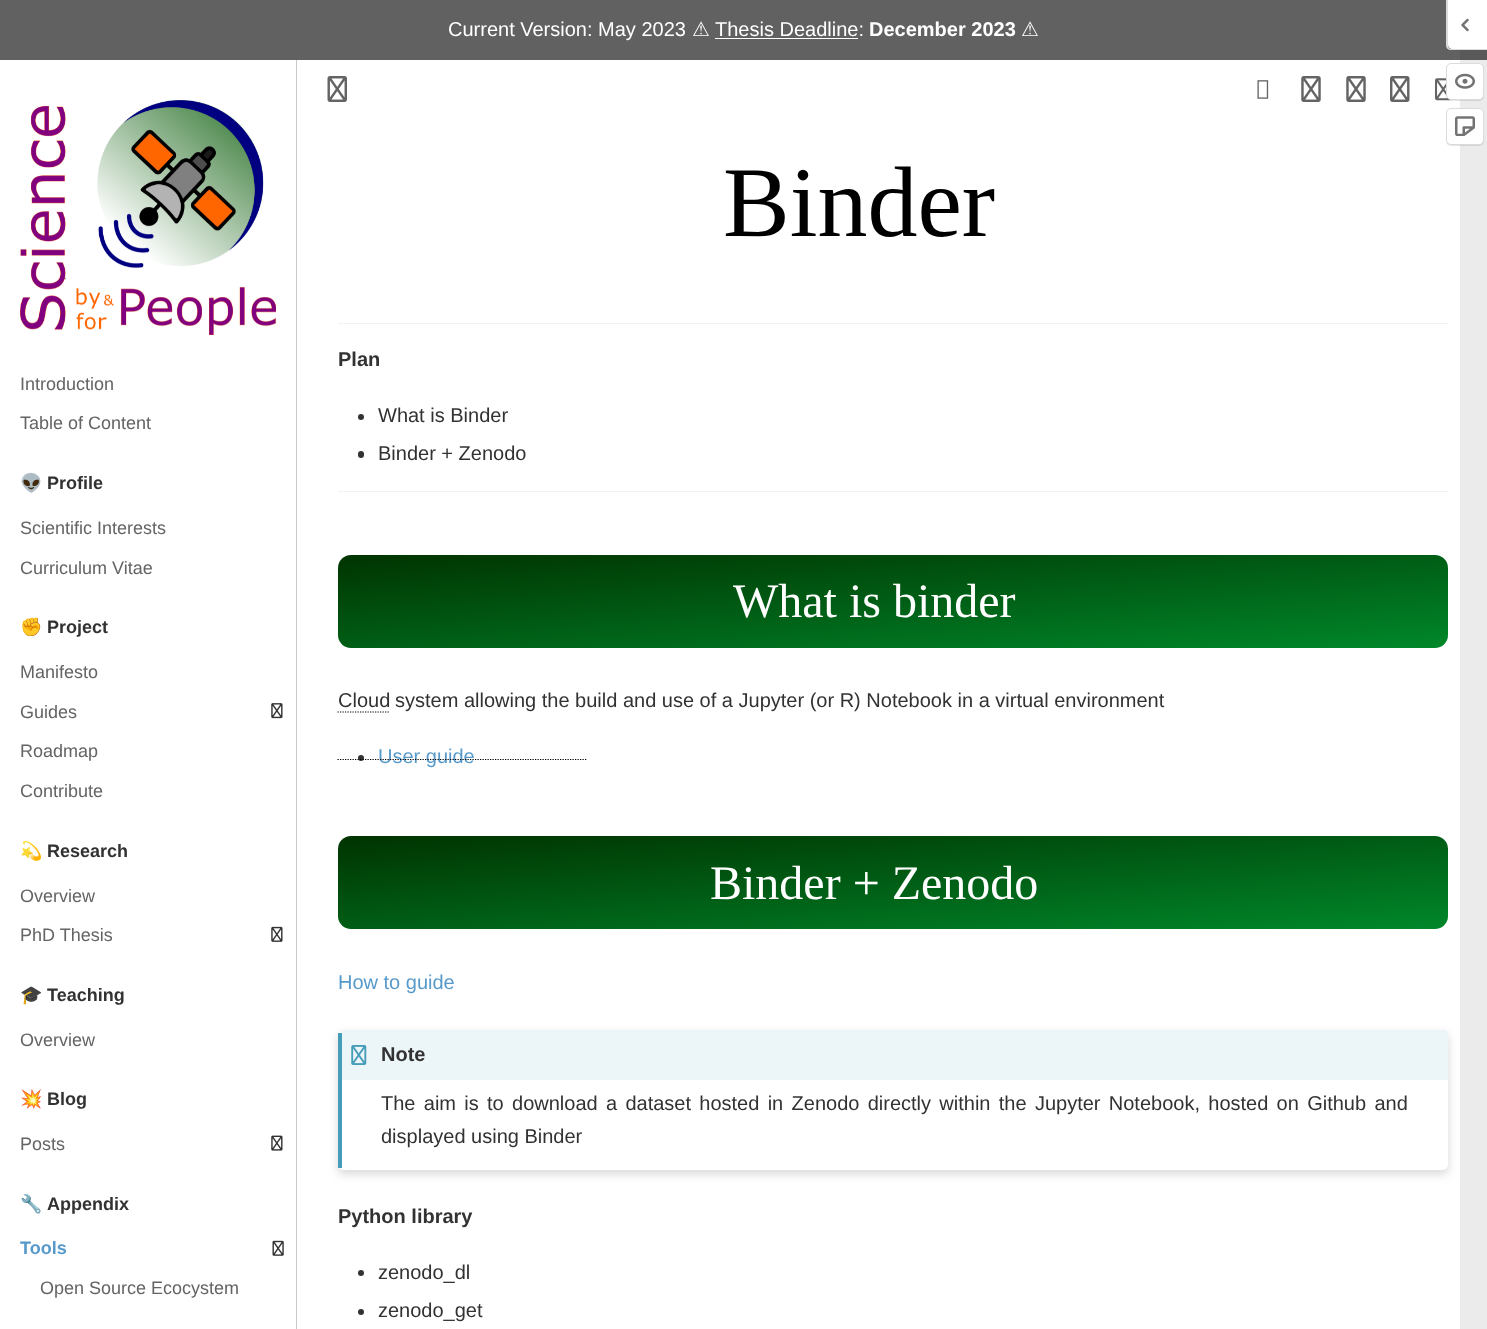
<!DOCTYPE html>
<meta charset="utf-8">
<style>body { margin: 0 } canvas { display: block }</style>
<canvas id="canvas" width="1487" height="1329"></canvas>
<script type="module">
  const canvas = document.getElementById("canvas");
  const ctx = canvas.getContext("2d");
  ctx.miterLimit = 4;
  ctx.fontKerning = "normal";
  async function loadImage(src) {
    const img = new Image();
    img.src = src;
    await img.decode();
    return img;
  }
  let gradient;

  ctx.fillStyle = "#ffffff";
  ctx.fillRect(0, 0, 1487, 1329);
  ctx.fillStyle = "#ebebeb";
  ctx.fillRect(1460, 60, 27, 1269);
  ctx.fillStyle = "#616161";
  ctx.fillRect(0, 0, 1460, 60);
  ctx.fillStyle = "#595959";
  ctx.fillRect(1460, 50, 27, 10);
  ctx.font = "20px Liberation Sans";
  ctx.fillStyle = "#ffffff";
  ctx.fillText("Current Version: May 2023", 448, 36);
  ctx.font = "20px DejaVu Sans";
  ctx.fillText("⚠", 692, 36);
  ctx.font = "20px Liberation Sans";
  ctx.fillText("Thesis Deadline:", 715, 36);
  ctx.fillRect(715, 38, 143, 1);
  ctx.font = "bold 20px Liberation Sans";
  ctx.fillText("December 2023", 869, 36);
  ctx.font = "20px DejaVu Sans";
  ctx.fillText("⚠", 1021, 36);
  ctx.beginPath();
  ctx.moveTo(1448, 0);
  ctx.lineTo(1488, 0);
  ctx.lineTo(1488, 49);
  ctx.lineTo(1452, 49);
  ctx.bezierCurveTo(1450, 49, 1448, 47, 1448, 45);
  ctx.closePath();
  ctx.fill();
  ctx.fillStyle = "#dbdbdb";
  ctx.beginPath();
  ctx.moveTo(1446, 0);
  ctx.lineTo(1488, 0);
  ctx.lineTo(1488, 50);
  ctx.lineTo(1451, 50);
  ctx.bezierCurveTo(1448, 50, 1446, 48, 1446, 45);
  ctx.closePath();
  ctx.moveTo(1448, 0);
  ctx.lineTo(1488, 0);
  ctx.lineTo(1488, 49);
  ctx.lineTo(1451, 49);
  ctx.bezierCurveTo(1449, 49, 1448, 47, 1448, 45);
  ctx.closePath();
  ctx.fill("evenodd");
  ctx.drawImage(await loadImage("img1.png"), 1461, 18, 8, 14);
  ctx.drawImage(await loadImage("img13.png"), 1435, 78, 16, 23);
  ctx.fillStyle = "rgba(0, 0, 0, 0.1)";
  ctx.filter = "blur(0.5px)";
  ctx.beginPath();
  ctx.roundRect(1446, 64, 38, 37, 5);
  ctx.fill();
  ctx.filter = "none";
  ctx.fillStyle = "#ffffff";
  ctx.beginPath();
  ctx.roundRect(1446.5, 63.5, 37, 36, 4.5);
  ctx.fill();
  ctx.strokeStyle = "#dbdbdb";
  ctx.stroke();
  ctx.drawImage(await loadImage("img2.png"), 1455, 73, 20, 16);
  ctx.fillStyle = "rgba(0, 0, 0, 0.1)";
  ctx.filter = "blur(0.5px)";
  ctx.beginPath();
  ctx.roundRect(1446, 109, 38, 37, 5);
  ctx.fill();
  ctx.filter = "none";
  ctx.fillStyle = "#ffffff";
  ctx.beginPath();
  ctx.roundRect(1446.5, 108.5, 37, 36, 4.5);
  ctx.fill();
  ctx.stroke();
  ctx.drawImage(await loadImage("img3.png"), 1455, 116, 20, 20);
  ctx.fillStyle = "#c9c9c9";
  ctx.fillRect(296, 60, 1, 1269);
  ctx.drawImage(await loadImage("img4.png"), 20, 100, 256, 235);
  ctx.font = "18px Liberation Sans";
  ctx.fillStyle = "#646464";
  ctx.fillText("Introduction", 20, 390);
  ctx.fillText("Table of Content", 20, 429);
  ctx.font = "bold 18px Noto Color Emoji";
  ctx.fillStyle = "#323232";
  ctx.fillText("👽", 20, 489);
  ctx.font = "bold 18px Liberation Sans";
  ctx.fillText("Profile", 47, 489);
  ctx.font = "18px Liberation Sans";
  ctx.fillStyle = "#646464";
  ctx.fillText("Scientific Interests", 20, 534);
  ctx.fillText("Curriculum Vitae", 20, 574);
  ctx.font = "bold 18px Noto Color Emoji";
  ctx.fillStyle = "#323232";
  ctx.fillText("✊", 20, 633);
  ctx.font = "bold 18px Liberation Sans";
  ctx.fillText("Project", 47, 633);
  ctx.font = "18px Liberation Sans";
  ctx.fillStyle = "#646464";
  ctx.fillText("Manifesto", 20, 678);
  ctx.fillText("Guides", 20, 718);
  ctx.drawImage(await loadImage("img5.png"), 271, 703, 12, 16);
  ctx.fillText("Roadmap", 20, 757);
  ctx.fillText("Contribute", 20, 797);
  ctx.font = "bold 18px Noto Color Emoji";
  ctx.fillStyle = "#323232";
  ctx.fillText("💫", 20, 857);
  ctx.font = "bold 18px Liberation Sans";
  ctx.fillText("Research", 47, 857);
  ctx.font = "18px Liberation Sans";
  ctx.fillStyle = "#646464";
  ctx.fillText("Overview", 20, 902);
  ctx.fillText("PhD Thesis", 20, 941);
  ctx.drawImage(await loadImage("img6.png"), 271, 926, 12, 16);
  ctx.font = "bold 18px Noto Color Emoji";
  ctx.fillStyle = "#323232";
  ctx.fillText("🎓", 20, 1001);
  ctx.font = "bold 18px Liberation Sans";
  ctx.fillText("Teaching", 47, 1001);
  ctx.font = "18px Liberation Sans";
  ctx.fillStyle = "#646464";
  ctx.fillText("Overview", 20, 1046);
  ctx.font = "bold 18px Noto Color Emoji";
  ctx.fillStyle = "#323232";
  ctx.fillText("💥", 20, 1105);
  ctx.font = "bold 18px Liberation Sans";
  ctx.fillText("Blog", 47, 1105);
  ctx.font = "18px Liberation Sans";
  ctx.fillStyle = "#646464";
  ctx.fillText("Posts", 20, 1150);
  ctx.drawImage(await loadImage("img7.png"), 271, 1135, 12, 16);
  ctx.font = "bold 18px Noto Color Emoji";
  ctx.fillStyle = "#323232";
  ctx.fillText("🔧", 20, 1210);
  ctx.font = "bold 18px Liberation Sans";
  ctx.fillText("Appendix", 47, 1210);
  ctx.fillStyle = "#579aca";
  ctx.fillText("Tools", 20, 1254);
  ctx.drawImage(await loadImage("img8.png"), 272, 1240, 12, 16);
  ctx.font = "18px Liberation Sans";
  ctx.fillStyle = "#646464";
  ctx.fillText("Open Source Ecocystem", 40, 1294);
  ctx.drawImage(await loadImage("img9.png"), 327, 76, 20, 26);
  ctx.drawImage(await loadImage("img10.png"), 1257, 80, 12, 19);
  ctx.drawImage(await loadImage("img11.png"), 1301, 76, 20, 26);
  ctx.drawImage(await loadImage("img11.png"), 1346, 76, 20, 26);
  ctx.drawImage(await loadImage("img12.png"), 1390, 76, 20, 26);
  ctx.font = "100px Liberation Serif";
  ctx.fillStyle = "#000000";
  ctx.fillText("Binder", 723, 236);
  ctx.fillStyle = "#f2f2f2";
  ctx.fillRect(338, 323, 1110, 1);
  ctx.font = "bold 20px Liberation Sans";
  ctx.fillStyle = "#323232";
  ctx.fillText("Plan", 338, 366);
  ctx.beginPath();
  ctx.arc(361, 417, 3, 0, Math.PI * 2);
  ctx.fill();
  ctx.font = "20px Liberation Sans";
  ctx.fillText("What is Binder", 378, 422);
  ctx.beginPath();
  ctx.roundRect(358, 451, 6, 7, 3);
  ctx.fill();
  ctx.fillText("Binder + Zenodo", 378, 460);
  ctx.fillStyle = "#f2f2f2";
  ctx.fillRect(338, 491, 1110, 1);
  gradient = ctx.createLinearGradient(885, 509, 903, 730);
  gradient.addColorStop(0, "#003300");
  gradient.addColorStop(1, "#009933");
  ctx.fillStyle = gradient;
  ctx.beginPath();
  ctx.roundRect(338, 555, 1110, 93, 13);
  ctx.fill();
  ctx.font = "48px Liberation Serif";
  ctx.fillStyle = "#ffffff";
  ctx.fillText("What is binder", 733, 617);
  ctx.font = "20px Liberation Sans";
  ctx.fillStyle = "#323232";
  ctx.fillText("Cloud", 338, 707);
  ctx.beginPath();
  ctx.arc(361, 758, 3, 0, Math.PI * 2);
  ctx.fill();
  ctx.fillStyle = "#579aca";
  ctx.fillText("User guide", 378, 763);
  ctx.beginPath();
  ctx.moveTo(337.5, 759.5);
  ctx.lineTo(587.5, 759.5);
  ctx.strokeStyle = "#000000";
  ctx.lineWidth = 1.2;
  ctx.setLineDash([1.25, 1.25]);
  ctx.stroke();
  ctx.beginPath();
  ctx.moveTo(337.5, 712);
  ctx.lineTo(390, 712);
  ctx.stroke();
  ctx.fillStyle = "#323232";
  ctx.fillText("system allowing the build and use of a Jupyter (or R) Notebook in a virtual environment", 395, 707);
  gradient = ctx.createLinearGradient(885, 791, 903, 1011);
  gradient.addColorStop(0, "#003300");
  gradient.addColorStop(1, "#009933");
  ctx.fillStyle = gradient;
  ctx.beginPath();
  ctx.roundRect(338, 836, 1110, 93, 13);
  ctx.fill();
  ctx.font = "48px Liberation Serif";
  ctx.fillStyle = "#ffffff";
  ctx.fillText("Binder + Zenodo", 710, 899);
  ctx.font = "20px Liberation Sans";
  ctx.fillStyle = "#579aca";
  ctx.fillText("How to guide", 338, 989);
  ctx.fillStyle = "#d8d8d8";
  ctx.filter = "blur(0.5px)";
  ctx.beginPath();
  ctx.roundRect(338, 1030, 1110, 140, 5);
  ctx.fill();
  ctx.filter = "none";
  ctx.filter = "blur(5px)";
  ctx.beginPath();
  ctx.roundRect(338, 1034, 1110, 140, 5);
  ctx.fill();
  ctx.filter = "none";
  ctx.fillStyle = "#ffffff";
  ctx.beginPath();
  ctx.roundRect(338, 1030, 1110, 140, 5);
  ctx.fill();
  ctx.fillStyle = "#459db9";
  ctx.fillRect(338, 1033, 4, 135);
  ctx.fillStyle = "rgba(69, 157, 185, 0.1)";
  ctx.beginPath();
  ctx.moveTo(342, 1030);
  ctx.lineTo(1442, 1030);
  ctx.bezierCurveTo(1445, 1030, 1448, 1032, 1448, 1035);
  ctx.lineTo(1448, 1080);
  ctx.lineTo(341, 1080);
  ctx.lineTo(341, 1035);
  ctx.bezierCurveTo(341, 1032, 342, 1030, 342, 1030);
  ctx.closePath();
  ctx.fill();
  ctx.drawImage(await loadImage("img14.png"), 351, 1045, 16, 20);
  ctx.font = "bold 20px Liberation Sans";
  ctx.fillStyle = "#323232";
  ctx.fillText("Note", 381, 1061);
  ctx.wordSpacing = "2.75px";
  ctx.font = "20px Liberation Sans";
  ctx.fillText("The aim is to download a dataset hosted in Zenodo directly within the Jupyter Notebook, hosted on Github and", 381, 1110);
  ctx.wordSpacing = "0px";
  ctx.fillText("displayed using Binder", 381, 1143);
  ctx.font = "bold 20px Liberation Sans";
  ctx.fillText("Python library", 338, 1223);
  ctx.beginPath();
  ctx.arc(361, 1273, 3, 0, Math.PI * 2);
  ctx.fill();
  ctx.font = "20px Liberation Sans";
  ctx.fillText("zenodo_dl", 378, 1279);
  ctx.beginPath();
  ctx.arc(361, 1312, 3, 0, Math.PI * 2);
  ctx.fill();
  ctx.fillText("zenodo_get", 378, 1317);
</script>
